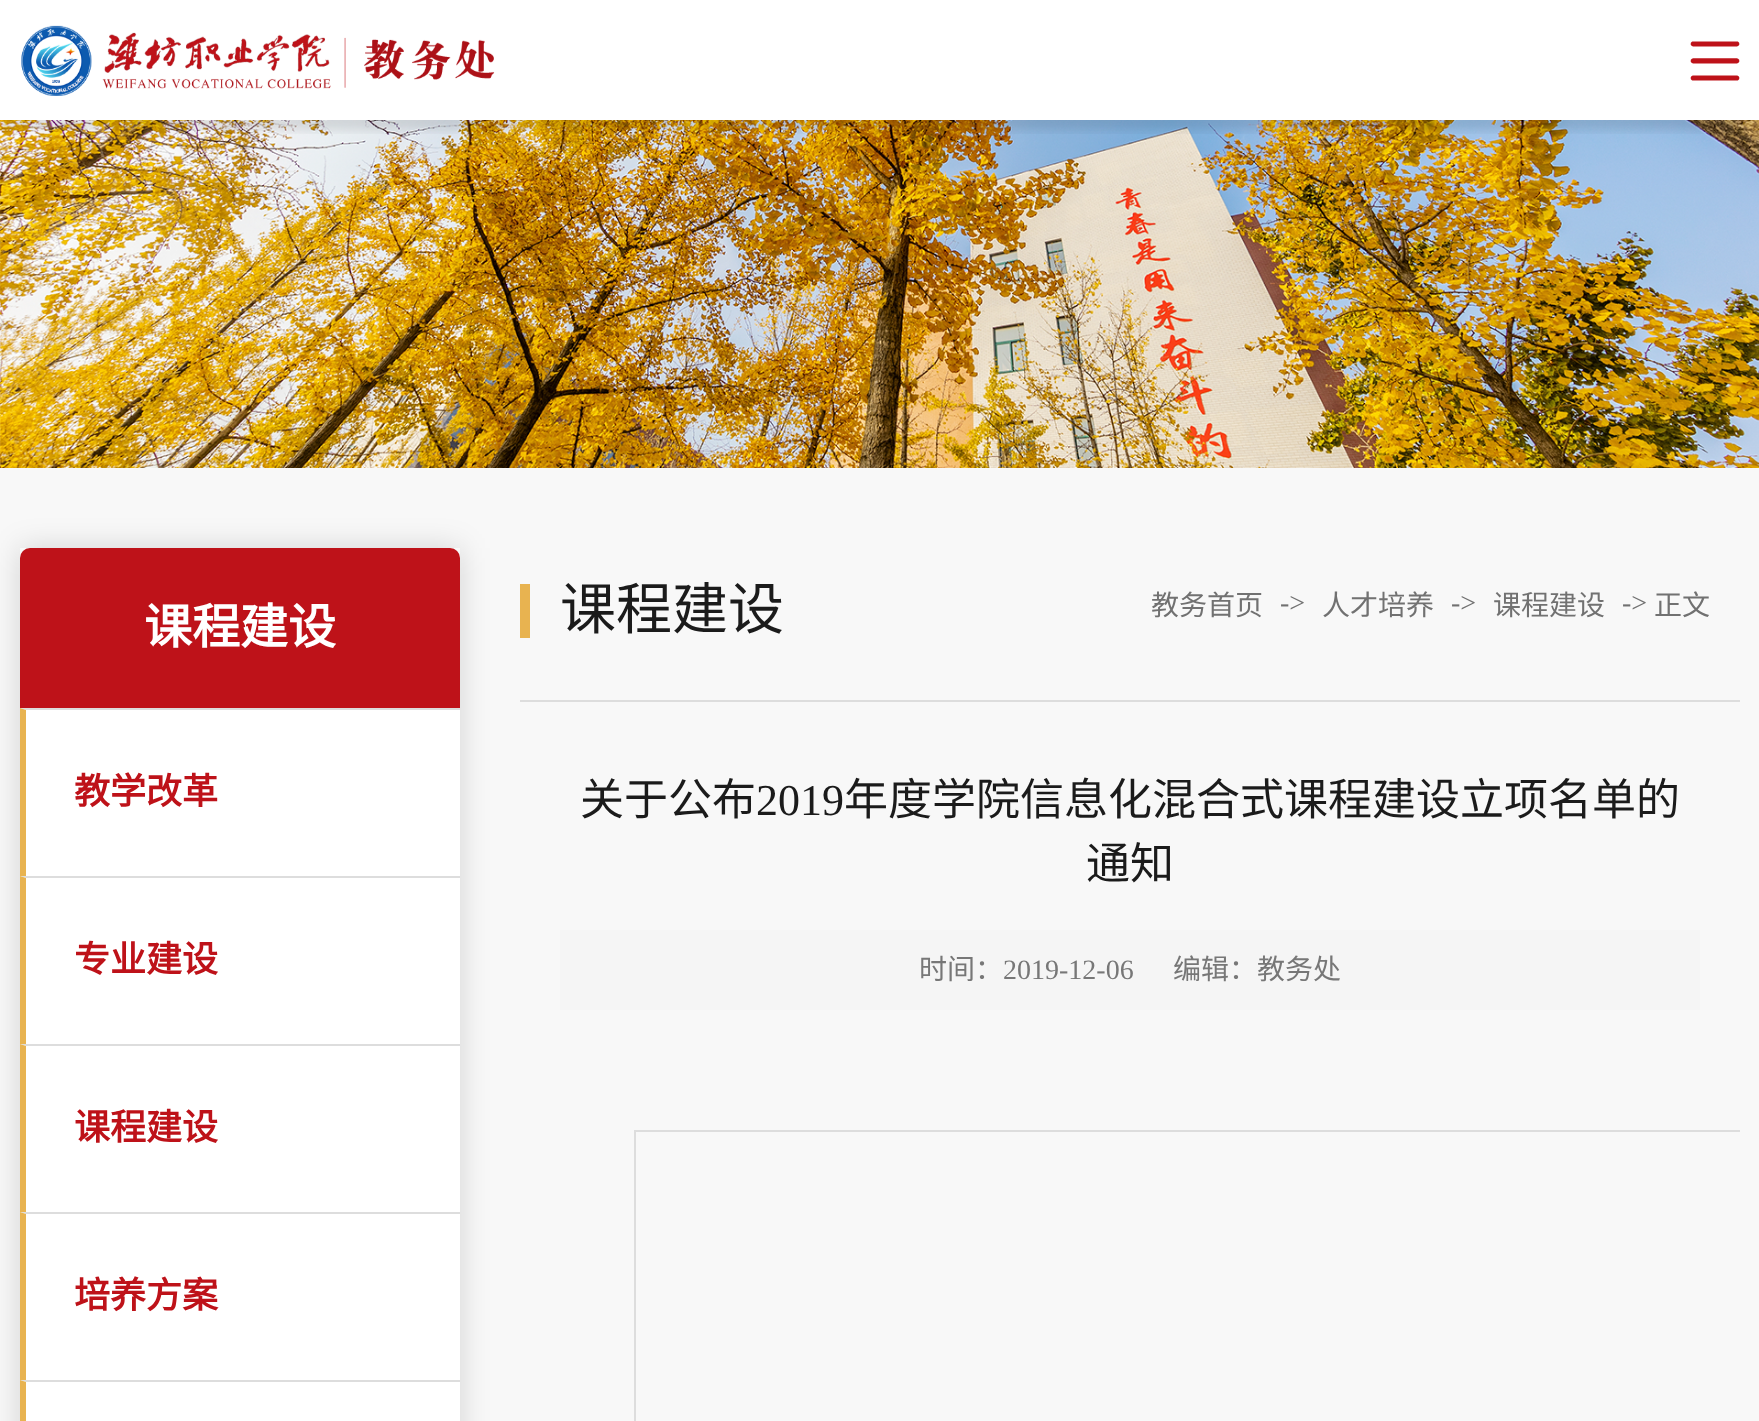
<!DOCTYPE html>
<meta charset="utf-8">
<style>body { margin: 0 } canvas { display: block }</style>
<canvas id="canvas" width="1759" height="1421"></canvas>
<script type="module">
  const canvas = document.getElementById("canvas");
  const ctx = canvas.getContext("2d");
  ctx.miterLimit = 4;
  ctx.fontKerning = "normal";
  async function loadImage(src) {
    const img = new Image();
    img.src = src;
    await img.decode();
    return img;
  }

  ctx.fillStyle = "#ffffff";
  ctx.fillRect(0, 0, 1759, 1421);
  ctx.drawImage(await loadImage("img3.png"), 0, 120, 1759, 348);
  ctx.save();
  ctx.beginPath();
  ctx.rect(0, 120, 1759, 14);
  ctx.clip();
  ctx.fillStyle = "rgba(0, 0, 0, 0.1)";
  ctx.filter = "blur(5px)";
  ctx.beginPath();
  ctx.rect(0, 10, 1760, 120);
  ctx.fill();
  ctx.filter = "none";
  ctx.restore();
  ctx.drawImage(await loadImage("img1.png"), 21, 25, 474, 71);
  ctx.drawImage(await loadImage("img2.png"), 1690, 41, 50, 40);
  ctx.fillStyle = "#f8f8f8";
  ctx.fillRect(0, 468, 1759, 953);
  ctx.save();
  ctx.beginPath();
  ctx.moveTo(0, 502);
  ctx.lineTo(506, 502);
  ctx.lineTo(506, 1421);
  ctx.lineTo(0, 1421);
  ctx.closePath();
  ctx.moveTo(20, 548);
  ctx.lineTo(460, 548);
  ctx.lineTo(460, 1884);
  ctx.lineTo(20, 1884);
  ctx.closePath();
  ctx.clip("evenodd");
  ctx.fillStyle = "rgba(0, 0, 0, 0.15)";
  ctx.filter = "blur(15px)";
  ctx.beginPath();
  ctx.rect(20, 548, 440, 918);
  ctx.fill();
  ctx.filter = "none";
  ctx.restore();
  ctx.fillStyle = "#be1219";
  ctx.beginPath();
  ctx.roundRect(20, 548, 440, 160, [10, 10, 0, 0]);
  ctx.fill();
  ctx.font = "bold 48px Noto Sans CJK SC";
  ctx.fillStyle = "#ffffff";
  ctx.fillText("课程建设", 144, 644);
  ctx.fillRect(20, 708, 440, 713);
  ctx.fillStyle = "#dddddd";
  ctx.beginPath();
  ctx.moveTo(20, 708);
  ctx.lineTo(460, 708);
  ctx.lineTo(460, 710);
  ctx.lineTo(26, 710);
  ctx.closePath();
  ctx.fill();
  ctx.fillStyle = "#e8b350";
  ctx.beginPath();
  ctx.moveTo(20, 876);
  ctx.lineTo(20, 708);
  ctx.lineTo(26, 710);
  ctx.lineTo(26, 876);
  ctx.closePath();
  ctx.fill();
  ctx.font = "bold 36px Noto Sans CJK SC";
  ctx.fillStyle = "#be1219";
  ctx.fillText("教学改革", 74, 804);
  ctx.fillStyle = "#dddddd";
  ctx.beginPath();
  ctx.moveTo(20, 876);
  ctx.lineTo(460, 876);
  ctx.lineTo(460, 878);
  ctx.lineTo(26, 878);
  ctx.closePath();
  ctx.fill();
  ctx.fillStyle = "#e8b350";
  ctx.beginPath();
  ctx.moveTo(20, 1044);
  ctx.lineTo(20, 876);
  ctx.lineTo(26, 878);
  ctx.lineTo(26, 1044);
  ctx.closePath();
  ctx.fill();
  ctx.fillStyle = "#be1219";
  ctx.fillText("专业建设", 74, 972);
  ctx.fillStyle = "#dddddd";
  ctx.beginPath();
  ctx.moveTo(20, 1044);
  ctx.lineTo(460, 1044);
  ctx.lineTo(460, 1046);
  ctx.lineTo(26, 1046);
  ctx.closePath();
  ctx.fill();
  ctx.fillStyle = "#e8b350";
  ctx.beginPath();
  ctx.moveTo(20, 1212);
  ctx.lineTo(20, 1044);
  ctx.lineTo(26, 1046);
  ctx.lineTo(26, 1212);
  ctx.closePath();
  ctx.fill();
  ctx.fillStyle = "#be1219";
  ctx.fillText("课程建设", 74, 1140);
  ctx.fillStyle = "#dddddd";
  ctx.beginPath();
  ctx.moveTo(20, 1212);
  ctx.lineTo(460, 1212);
  ctx.lineTo(460, 1214);
  ctx.lineTo(26, 1214);
  ctx.closePath();
  ctx.fill();
  ctx.fillStyle = "#e8b350";
  ctx.beginPath();
  ctx.moveTo(20, 1380);
  ctx.lineTo(20, 1212);
  ctx.lineTo(26, 1214);
  ctx.lineTo(26, 1380);
  ctx.closePath();
  ctx.fill();
  ctx.fillStyle = "#be1219";
  ctx.fillText("培养方案", 74, 1308);
  ctx.fillStyle = "#dddddd";
  ctx.beginPath();
  ctx.moveTo(20, 1380);
  ctx.lineTo(460, 1380);
  ctx.lineTo(460, 1382);
  ctx.lineTo(26, 1382);
  ctx.closePath();
  ctx.fill();
  ctx.fillStyle = "#e8b350";
  ctx.beginPath();
  ctx.moveTo(20, 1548);
  ctx.lineTo(20, 1380);
  ctx.lineTo(26, 1382);
  ctx.lineTo(26, 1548);
  ctx.closePath();
  ctx.fill();
  ctx.fillStyle = "#dddddd";
  ctx.fillRect(520, 700, 1220, 2);
  ctx.fillStyle = "#e8b350";
  ctx.fillRect(520, 584, 10, 54);
  ctx.font = "56px Noto Sans CJK SC";
  ctx.fillStyle = "#1b1b1b";
  ctx.fillText("课程建设", 560, 629);
  ctx.font = "28px Noto Sans CJK SC";
  ctx.fillStyle = "#717171";
  ctx.fillText("教务首页", 1151, 615);
  ctx.font = "28px Liberation Serif";
  ctx.fillText("->", 1280, 612);
  ctx.font = "28px Noto Sans CJK SC";
  ctx.fillText("人才培养", 1322, 615);
  ctx.font = "28px Liberation Serif";
  ctx.fillText("->", 1451, 612);
  ctx.font = "28px Noto Sans CJK SC";
  ctx.fillText("课程建设", 1493, 615);
  ctx.font = "28px Liberation Serif";
  ctx.fillText("->", 1622, 612);
  ctx.font = "28px Noto Sans CJK SC";
  ctx.fillText("正文", 1654, 615);
  ctx.font = "44px Noto Sans CJK SC";
  ctx.fillStyle = "#1b1b1b";
  ctx.fillText("关于公布", 580, 815);
  ctx.font = "44px Liberation Serif";
  ctx.fillText("2019", 756, 815);
  ctx.font = "44px Noto Sans CJK SC";
  ctx.fillText("年度学院信息化混合式课程建设立项名单的", 844, 815);
  ctx.fillText("通知", 1086, 879);
  ctx.fillStyle = "#f5f5f5";
  ctx.fillRect(560, 930, 1140, 80);
  ctx.font = "28px Noto Sans CJK SC";
  ctx.fillStyle = "#777777";
  ctx.fillText("时间：", 919, 979);
  ctx.font = "28px Liberation Serif";
  ctx.fillText("2019-12-06", 1003, 979);
  ctx.font = "28px Noto Sans CJK SC";
  ctx.fillText("编辑：教务处", 1173, 979);
  ctx.save();
  ctx.beginPath();
  ctx.rect(520, 548, 1220, 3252);
  ctx.clip();
  ctx.strokeStyle = "#dddddd";
  ctx.lineWidth = 2;
  ctx.strokeRect(635, 1131, 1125, 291);
  ctx.restore();
</script>
